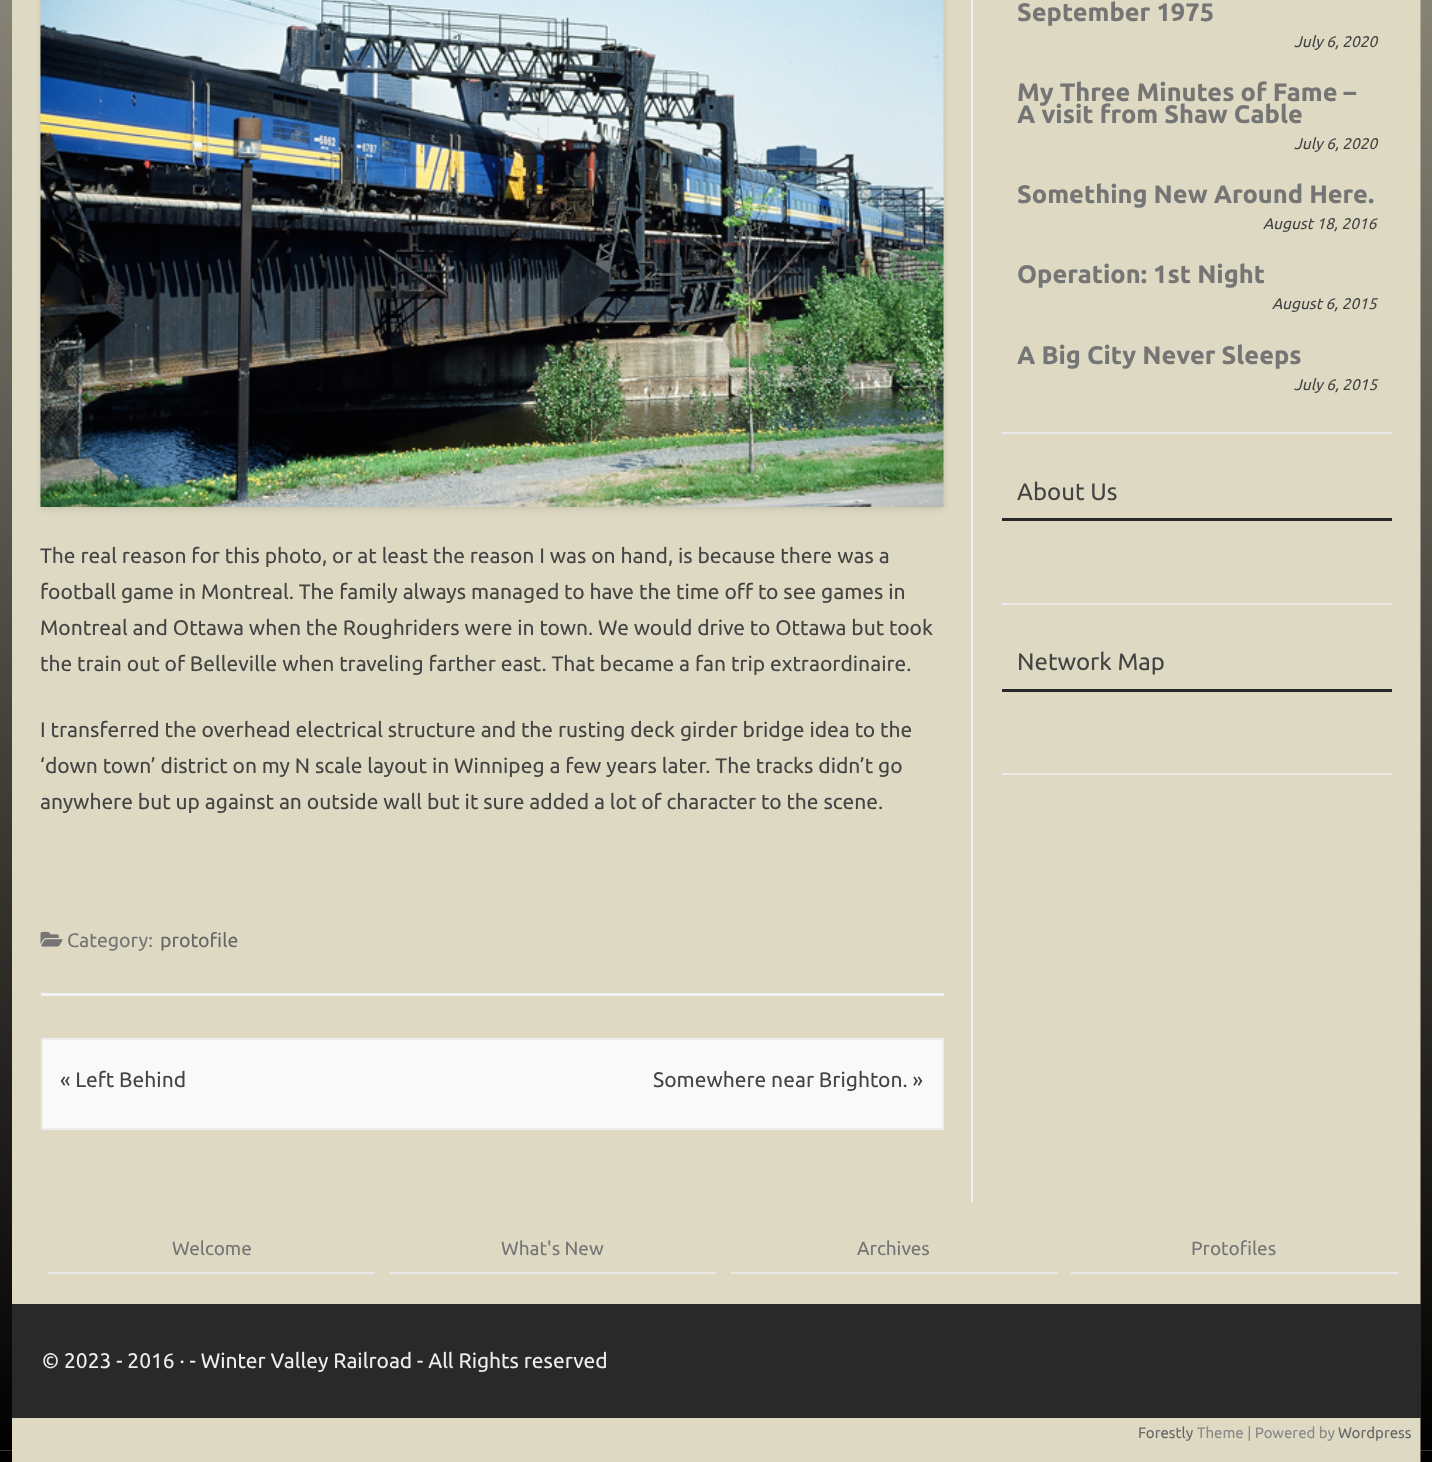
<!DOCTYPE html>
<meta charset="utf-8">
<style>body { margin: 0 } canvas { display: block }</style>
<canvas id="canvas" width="1432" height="1462"></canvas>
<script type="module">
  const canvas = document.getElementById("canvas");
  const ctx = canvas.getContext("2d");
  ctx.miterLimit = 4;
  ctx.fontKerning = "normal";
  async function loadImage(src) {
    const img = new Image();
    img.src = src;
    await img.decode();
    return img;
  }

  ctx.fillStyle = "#ffffff";
  ctx.fillRect(0, 0, 1432, 1462);
  ctx.drawImage(await loadImage("img1.png"), 0, 1450, 1, 1);
  ctx.fillStyle = "#ddd9c2";
  ctx.beginPath();
  ctx.roundRect(0, -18, 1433, 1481, 18);
  ctx.fill();
  ctx.drawImage(await loadImage("img2.png"), 0, 0, 1432, 1462);
  ctx.fillStyle = "#e9e9e9";
  ctx.fillRect(1002, 432, 390, 2);
  ctx.font = "bold 25.4px Ubuntu";
  ctx.fillStyle = "#757575";
  ctx.fillText("September 1975", 1017, 21);
  ctx.font = "italic 15.5px Ubuntu";
  ctx.fillStyle = "#444444";
  ctx.fillText("July 6, 2020", 1294, 47);
  ctx.font = "bold 25.4px Ubuntu";
  ctx.fillStyle = "#757575";
  ctx.fillText("My Three Minutes of Fame –", 1017, 101);
  ctx.fillText("A visit from Shaw Cable", 1017, 123);
  ctx.font = "italic 15.5px Ubuntu";
  ctx.fillStyle = "#444444";
  ctx.fillText("July 6, 2020", 1294, 149);
  ctx.font = "bold 25.4px Ubuntu";
  ctx.fillStyle = "#757575";
  ctx.fillText("Something New Around Here.", 1017, 203);
  ctx.font = "italic 15.5px Ubuntu";
  ctx.fillStyle = "#444444";
  ctx.fillText("August 18, 2016", 1263, 229);
  ctx.font = "bold 25.4px Ubuntu";
  ctx.fillStyle = "#757575";
  ctx.fillText("Operation: 1st Night", 1017, 283);
  ctx.font = "italic 15.5px Ubuntu";
  ctx.fillStyle = "#444444";
  ctx.fillText("August 6, 2015", 1272, 309);
  ctx.font = "bold 25.4px Ubuntu";
  ctx.fillStyle = "#757575";
  ctx.fillText("A Big City Never Sleeps", 1017, 364);
  ctx.font = "italic 15.5px Ubuntu";
  ctx.fillStyle = "#444444";
  ctx.fillText("July 6, 2015", 1294, 390);
  ctx.fillStyle = "#292929";
  ctx.fillRect(1002, 518, 390, 3);
  ctx.font = "24px Ubuntu";
  ctx.fillStyle = "#444444";
  ctx.fillText("About Us", 1017, 500);
  ctx.fillStyle = "#e9e9e9";
  ctx.fillRect(1002, 603, 390, 2);
  ctx.fillStyle = "#292929";
  ctx.fillRect(1002, 689, 390, 3);
  ctx.fillStyle = "#444444";
  ctx.fillText("Network Map", 1017, 670);
  ctx.fillStyle = "#e9e9e9";
  ctx.fillRect(1002, 773, 390, 2);
  ctx.fillStyle = "#f1f1f1";
  ctx.fillRect(971, 0, 2, 1202);
  ctx.fillStyle = "#f3f3f3";
  ctx.fillRect(41, 993, 903, 3);
  ctx.fillStyle = "rgba(0, 0, 0, 0.1)";
  ctx.filter = "blur(3px)";
  ctx.beginPath();
  ctx.rect(41, -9, 903, 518);
  ctx.fill();
  ctx.filter = "none";
  ctx.drawImage(await loadImage("img3.png"), 40, 0, 904, 507);
  ctx.font = "21px Ubuntu";
  ctx.fillStyle = "#444444";
  ctx.fillText("The real reason for this photo, or at least the reason I was on hand, is because there was a", 40, 563);
  ctx.fillText("football game in Montreal. The family always managed to have the time off to see games in", 40, 599);
  ctx.fillText("Montreal and Ottawa when the Roughriders were in town. We would drive to Ottawa but took", 40, 635);
  ctx.fillText("the train out of Belleville when traveling farther east. That became a fan trip extraordinaire.", 40, 671);
  ctx.fillText("I transferred the overhead electrical structure and the rusting deck girder bridge idea to the", 40, 737);
  ctx.fillText("‘down town’ district on my N scale layout in Winnipeg a few years later. The tracks didn’t go", 40, 773);
  ctx.fillText("anywhere but up against an outside wall but it sure added a lot of character to the scene.", 40, 809);
  ctx.drawImage(await loadImage("img4.png"), 40, 931, 23, 16);
  ctx.font = "19.5px Ubuntu";
  ctx.fillStyle = "#757575";
  ctx.fillText("Category:", 67, 947);
  ctx.fillStyle = "#666666";
  ctx.fillText("protofile", 160, 947);
  ctx.fillStyle = "#f9f9f9";
  ctx.beginPath();
  ctx.rect(42, 1039, 901, 90);
  ctx.fill();
  ctx.strokeStyle = "#ededed";
  ctx.lineWidth = 2;
  ctx.stroke();
  ctx.font = "21px Ubuntu";
  ctx.fillStyle = "#444444";
  ctx.fillText("« Left Behind", 60, 1087);
  ctx.fillText("Somewhere near Brighton. »", 653, 1087);
  ctx.fillStyle = "#e9e9e9";
  ctx.fillRect(48, 1272, 327, 2);
  ctx.font = "19px Ubuntu";
  ctx.fillStyle = "#757575";
  ctx.fillText("Welcome", 172, 1255);
  ctx.fillStyle = "#e9e9e9";
  ctx.fillRect(389, 1272, 327, 2);
  ctx.fillStyle = "#757575";
  ctx.fillText("What's New", 501, 1255);
  ctx.fillStyle = "#e9e9e9";
  ctx.fillRect(731, 1272, 327, 2);
  ctx.fillStyle = "#757575";
  ctx.fillText("Archives", 857, 1255);
  ctx.fillStyle = "#e9e9e9";
  ctx.fillRect(1071, 1272, 327, 2);
  ctx.fillStyle = "#757575";
  ctx.fillText("Protofiles", 1191, 1255);
  ctx.fillStyle = "#292929";
  ctx.fillRect(12, 1304, 1409, 114);
  ctx.font = "21px Ubuntu";
  ctx.fillStyle = "#eeeeee";
  ctx.fillText("© 2023 - 2016 · - Winter Valley Railroad - All Rights reserved", 42, 1368);
  ctx.font = "15px Ubuntu";
  ctx.fillStyle = "#666666";
  ctx.fillText("Forestly", 1138, 1438);
  ctx.fillStyle = "#888888";
  ctx.fillText("Theme | Powered by", 1197, 1438);
  ctx.fillStyle = "#666666";
  ctx.fillText("Wordpress", 1338, 1438);
</script>
